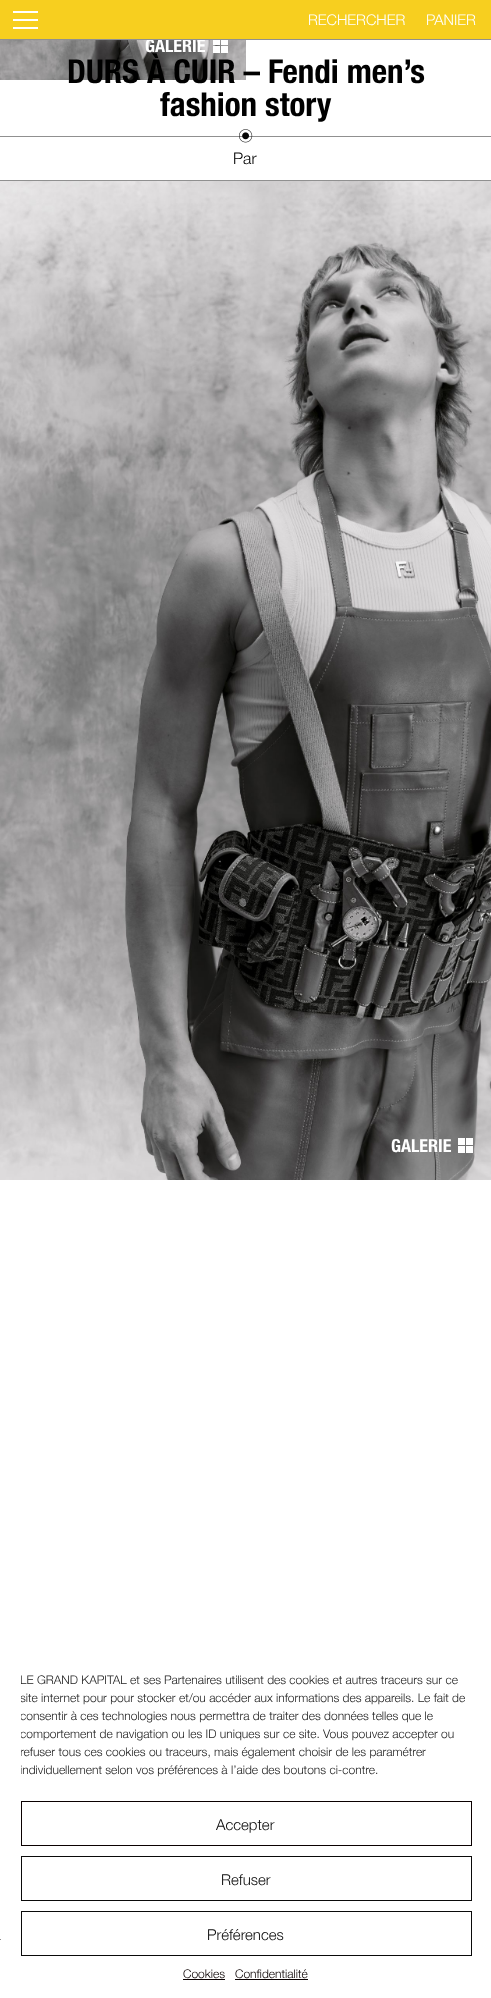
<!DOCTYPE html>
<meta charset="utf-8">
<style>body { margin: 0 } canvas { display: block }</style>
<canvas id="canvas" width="491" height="1998"></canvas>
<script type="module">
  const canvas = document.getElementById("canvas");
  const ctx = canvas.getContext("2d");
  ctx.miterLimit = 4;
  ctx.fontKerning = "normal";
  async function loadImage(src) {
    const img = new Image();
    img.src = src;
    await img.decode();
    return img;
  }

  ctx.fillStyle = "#ffffff";
  ctx.fillRect(0, 0, 491, 1998);
  ctx.drawImage(await loadImage("img1.png"), 0, 40, 246, 40);
  ctx.font = "bold 18px Helvetica Neue";
  ctx.fillText("GALERIE", 145, 52);
  ctx.fillStyle = "#f7cf1f";
  ctx.fillRect(0, 0, 491, 39);
  ctx.fillStyle = "#ffffff";
  ctx.fillRect(13, 11, 25, 2);
  ctx.fillRect(13, 19, 25, 2);
  ctx.fillRect(13, 27, 25, 2);
  ctx.fillStyle = "#909090";
  ctx.fillRect(0, 39, 491, 1);
  ctx.font = "300 14.75px Helvetica Neue";
  ctx.fillStyle = "#ffffff";
  ctx.fillText("RECHERCHER", 308, 25);
  ctx.fillText("PANIER", 426, 25);
  ctx.drawImage(await loadImage("img2.png"), 213, 40, 15, 13);
  ctx.fillStyle = "#909090";
  ctx.fillRect(0, 136, 491, 1);
  ctx.font = "bold 33px Helvetica Neue";
  ctx.fillStyle = "#000000";
  ctx.fillText("DURS À CUIR – Fendi men’s", 67, 83);
  ctx.fillText("fashion story", 160, 116);
  ctx.drawImage(await loadImage("img3.png"), 239, 129, 14, 14);
  ctx.fillStyle = "#909090";
  ctx.fillRect(0, 180, 491, 1);
  ctx.font = "300 16px Helvetica Neue";
  ctx.fillStyle = "#000000";
  ctx.fillText("Par", 233, 164);
  ctx.drawImage(await loadImage("img4.png"), 0, 181, 491, 999);
  ctx.font = "bold 18px Helvetica Neue";
  ctx.fillStyle = "#ffffff";
  ctx.fillText("GALERIE", 391, 1152);
  ctx.drawImage(await loadImage("img5.png"), 458, 1138, 15, 15);
  ctx.fillStyle = "#909090";
  ctx.fillRect(0, 1939, 1, 1);
  ctx.save();
  ctx.beginPath();
  ctx.rect(21, 1659, 451, 132);
  ctx.clip();
  ctx.font = "300 12px Helvetica Neue";
  ctx.fillStyle = "#222222";
  ctx.fillText("LE GRAND KAPITAL et ses", 20, 1684);
  ctx.restore();
  ctx.font = "300 12px Helvetica Neue";
  ctx.fillStyle = "#222222";
  ctx.fillText("Partenaires utilisent des cookies et autres traceurs sur ce", 164, 1684);
  ctx.save();
  ctx.beginPath();
  ctx.rect(21, 1659, 451, 132);
  ctx.clip();
  ctx.fillText("site internet pour pour stocker et/ou accéder aux informations des appareils. Le fait de", 20, 1702);
  ctx.fillText("consentir à ces technologies nous permettra de traiter des données telles que le", 20, 1720);
  ctx.fillText("comportement de navigation ou les ID uniques sur ce site.", 20, 1738);
  ctx.restore();
  ctx.fillText("Vous pouvez accepter ou", 323, 1738);
  ctx.save();
  ctx.beginPath();
  ctx.rect(21, 1659, 451, 132);
  ctx.clip();
  ctx.fillText("refuser tous ces cookies ou traceurs, mais également choisir de les paramétrer", 20, 1756);
  ctx.fillText("individuellement selon vos préférences à l’aide des boutons ci-contre.", 20, 1774);
  ctx.restore();
  ctx.strokeStyle = "#0a0000";
  ctx.strokeRect(21.5, 1801.5, 450, 44);
  ctx.font = "300 15px Helvetica Neue";
  ctx.fillStyle = "#0a0a0a";
  ctx.fillText("Accepter", 216, 1830);
  ctx.strokeStyle = "#0a0a0a";
  ctx.strokeRect(21.5, 1856.5, 450, 44);
  ctx.fillText("Refuser", 221, 1885);
  ctx.strokeRect(21.5, 1911.5, 450, 44);
  ctx.fillText("Préférences", 207, 1940);
  ctx.font = "300 12px Helvetica Neue";
  ctx.fillStyle = "#0a0000";
  ctx.fillText("Cookies", 183, 1978);
  ctx.fillRect(183, 1979, 42, 1);
  ctx.fillText("Confidentialité", 235, 1978);
  ctx.fillRect(235, 1979, 73, 1);
</script>
